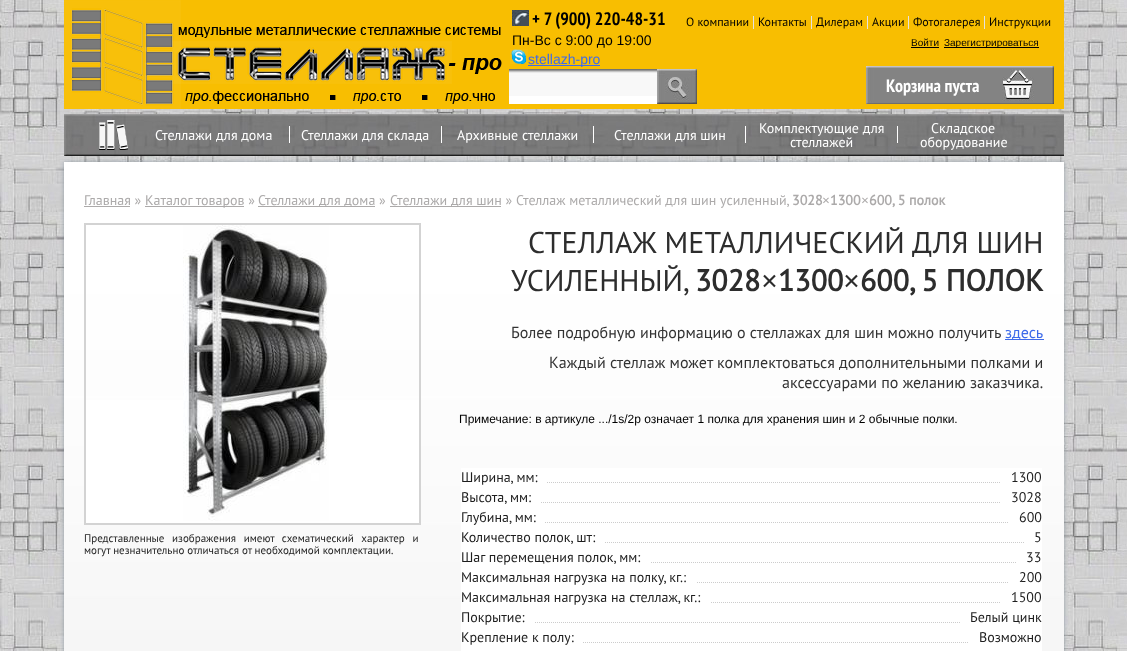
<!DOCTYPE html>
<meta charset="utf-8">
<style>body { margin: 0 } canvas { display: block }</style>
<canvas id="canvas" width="1127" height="651"></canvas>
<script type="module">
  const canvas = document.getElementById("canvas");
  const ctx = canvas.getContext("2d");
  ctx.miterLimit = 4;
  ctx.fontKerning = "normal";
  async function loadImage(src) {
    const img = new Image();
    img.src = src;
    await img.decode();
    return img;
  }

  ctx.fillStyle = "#ffffff";
  ctx.fillRect(0, 0, 1127, 651);
  ctx.drawImage(await loadImage("img1.png"), 0, 0, 1127, 651);
  ctx.fillStyle = "#f8be01";
  ctx.fillRect(64, 0, 1000, 109);
  ctx.drawImage(await loadImage("img2.png"), 64, 0, 438, 109);
  ctx.drawImage(await loadImage("img3.png"), 512, 10, 17, 16);
  ctx.font = "bold 18px PT Sans Narrow";
  ctx.fillStyle = "#000000";
  ctx.fillText("+ 7 (900) 220-48-31", 532, 25);
  ctx.font = "14px Liberation Sans";
  ctx.fillText("Пн-Вс с 9:00 до 19:00", 512, 45);
  ctx.drawImage(await loadImage("img4.png"), 510, 49, 18, 15);
  ctx.fillStyle = "#3e6bea";
  ctx.fillRect(528, 65, 72, 1);
  ctx.fillText("stellazh-pro", 528, 64);
  ctx.fillStyle = "#e4e2e2";
  ctx.fillRect(753, 16, 1, 13);
  ctx.font = "12px PT Sans";
  ctx.fillStyle = "#000000";
  ctx.fillText("О компании", 686, 26);
  ctx.fillStyle = "#e4e2e2";
  ctx.fillRect(811, 16, 1, 13);
  ctx.fillStyle = "#000000";
  ctx.fillText("Контакты", 758, 26);
  ctx.fillStyle = "#e4e2e2";
  ctx.fillRect(867, 16, 1, 13);
  ctx.fillStyle = "#000000";
  ctx.fillText("Дилерам", 816, 26);
  ctx.fillStyle = "#e4e2e2";
  ctx.fillRect(908, 16, 1, 13);
  ctx.fillStyle = "#000000";
  ctx.fillText("Акции", 872, 26);
  ctx.fillStyle = "#e4e2e2";
  ctx.fillRect(984, 16, 1, 13);
  ctx.fillStyle = "#000000";
  ctx.fillText("Фотогалерея", 913, 26);
  ctx.fillText("Инструкции", 989, 26);
  ctx.font = "10px Liberation Sans";
  ctx.fillText("Войти", 911, 46);
  ctx.fillRect(911, 47, 28, 1);
  ctx.fillRect(944, 47, 95, 1);
  ctx.fillText("Зарегистрироваться", 944, 46);
  ctx.fillStyle = "#ffffff";
  ctx.fillRect(509, 96, 148, 8);
  ctx.drawImage(await loadImage("img5.png"), 509, 69, 148, 27);
  ctx.drawImage(await loadImage("img6.png"), 657, 69, 40, 35);
  ctx.drawImage(await loadImage("img7.png"), 866, 66, 188, 38);
  ctx.font = "bold 18px PT Sans Narrow";
  ctx.fillText("Корзина пуста", 886, 92);
  ctx.drawImage(await loadImage("img8.png"), 64, 114, 1000, 42);
  ctx.drawImage(await loadImage("img9.png"), 99, 120, 29, 30);
  ctx.fillRect(289, 126, 1, 17);
  ctx.font = "14px PT Sans";
  ctx.fillText("Стеллажи для дома", 155, 140);
  ctx.fillRect(441, 126, 1, 17);
  ctx.fillText("Стеллажи для склада", 301, 140);
  ctx.fillRect(593, 126, 1, 17);
  ctx.fillText("Архивные стеллажи", 457, 140);
  ctx.fillRect(745, 126, 1, 17);
  ctx.fillText("Стеллажи для шин", 614, 140);
  ctx.fillRect(897, 126, 1, 17);
  ctx.fillText("Комплектующие для", 759, 133);
  ctx.fillText("стеллажей", 790, 147);
  ctx.fillText("Складское", 931, 133);
  ctx.fillText("оборудование", 920, 147);
  ctx.fillStyle = "rgba(88, 107, 124, 0.51)";
  ctx.filter = "blur(2px)";
  ctx.beginPath();
  ctx.rect(64, 162, 1000, 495);
  ctx.fill();
  ctx.filter = "none";
  ctx.drawImage(await loadImage("img10.png"), 64, 162, 1000, 489);
  ctx.fillStyle = "#acaaaa";
  ctx.fillText("Главная »", 84, 205);
  ctx.fillRect(84, 206, 46, 1);
  ctx.fillRect(145, 206, 99, 1);
  ctx.fillText("Каталог товаров »", 145, 205);
  ctx.fillRect(258, 206, 117, 1);
  ctx.fillText("Стеллажи для дома »", 258, 205);
  ctx.fillRect(390, 206, 111, 1);
  ctx.fillText("Стеллажи для шин » Стеллаж металлический для шин усиленный,", 390, 205);
  ctx.font = "bold 14px PT Sans";
  ctx.fillText("3028", 792, 205);
  ctx.font = "bold 14px Liberation Serif";
  ctx.fillText("×", 822, 205);
  ctx.font = "bold 14px PT Sans";
  ctx.fillText("1300", 830, 205);
  ctx.font = "bold 14px Liberation Serif";
  ctx.fillText("×", 861, 205);
  ctx.font = "bold 14px PT Sans";
  ctx.fillText("600, 5 полок", 869, 205);
  ctx.strokeStyle = "#d3d3d3";
  ctx.lineWidth = 2;
  ctx.strokeRect(85, 224, 335, 300);
  ctx.fillStyle = "#ffffff";
  ctx.fillRect(86, 400, 333, 123);
  ctx.drawImage(await loadImage("img11.png"), 183, 225, 146, 296);
  ctx.wordSpacing = "4.75px";
  ctx.font = "11px PT Sans";
  ctx.fillStyle = "#1e1e1e";
  ctx.fillText("Представленные изображения имеют схематический характер и", 84, 542);
  ctx.wordSpacing = "0px";
  ctx.fillText("могут незначительно отличаться от необходимой комплектации.", 84, 554);
  ctx.font = "30px PT Sans";
  ctx.fillStyle = "#2d2d2d";
  ctx.fillText("СТЕЛЛАЖ МЕТАЛЛИЧЕСКИЙ ДЛЯ ШИН", 528, 253);
  ctx.fillText("УСИЛЕННЫЙ,", 511, 291);
  ctx.font = "bold 30px PT Sans";
  ctx.fillText("3028", 695, 291);
  ctx.font = "bold 30px Liberation Serif";
  ctx.fillText("×", 761, 291);
  ctx.font = "bold 30px PT Sans";
  ctx.fillText("1300", 778, 291);
  ctx.font = "bold 30px Liberation Serif";
  ctx.fillText("×", 843, 291);
  ctx.font = "bold 30px PT Sans";
  ctx.fillText("600, 5 ПОЛОК", 860, 291);
  ctx.font = "16px PT Sans";
  ctx.fillStyle = "#333333";
  ctx.fillText("Более подробную информацию о стеллажах для шин можно получить", 511, 338);
  ctx.fillStyle = "#3e6bea";
  ctx.fillRect(1005, 339, 39, 1);
  ctx.fillText("здесь", 1005, 338);
  ctx.fillStyle = "#333333";
  ctx.fillText("Каждый стеллаж может комплектоваться дополнительными полками и", 549, 368);
  ctx.fillText("аксессуарами по желанию заказчика.", 782, 388);
  ctx.font = "12px Liberation Sans";
  ctx.fillStyle = "#000000";
  ctx.fillText("Примечание: в артикуле .../1s/2p означает 1 полка для хранения шин и 2 обычные полки.", 459, 423);
  ctx.fillStyle = "#ffffff";
  ctx.fillRect(461, 468, 581, 183);
  ctx.drawImage(await loadImage("img12.png"), 547, 482, 203, 1);
  ctx.font = "14px PT Sans";
  ctx.fillStyle = "#1e1e1e";
  ctx.fillText("Ширина, мм:", 461, 482);
  ctx.drawImage(await loadImage("img13.png"), 751, 482, 249, 1);
  ctx.fillText("1300", 1011, 482);
  ctx.drawImage(await loadImage("img14.png"), 541, 502, 209, 1);
  ctx.fillText("Высота, мм:", 461, 502);
  ctx.drawImage(await loadImage("img13.png"), 751, 502, 249, 1);
  ctx.fillText("3028", 1011, 502);
  ctx.drawImage(await loadImage("img15.png"), 545, 522, 205, 1);
  ctx.fillText("Глубина, мм:", 461, 522);
  ctx.drawImage(await loadImage("img16.png"), 751, 522, 257, 1);
  ctx.fillText("600", 1019, 522);
  ctx.drawImage(await loadImage("img17.png"), 605, 542, 145, 1);
  ctx.fillText("Количество полок, шт:", 461, 542);
  ctx.drawImage(await loadImage("img18.png"), 751, 542, 273, 1);
  ctx.fillText("5", 1034, 542);
  ctx.drawImage(await loadImage("img19.png"), 651, 562, 99, 1);
  ctx.fillText("Шаг перемещения полок, мм:", 461, 562);
  ctx.drawImage(await loadImage("img20.png"), 751, 562, 265, 1);
  ctx.fillText("33", 1026, 562);
  ctx.drawImage(await loadImage("img21.png"), 697, 582, 53, 1);
  ctx.fillText("Максимальная нагрузка на полку, кг.:", 461, 582);
  ctx.drawImage(await loadImage("img16.png"), 751, 582, 257, 1);
  ctx.fillText("200", 1019, 582);
  ctx.drawImage(await loadImage("img22.png"), 711, 602, 39, 1);
  ctx.fillText("Максимальная нагрузка на стеллаж, кг.:", 461, 602);
  ctx.drawImage(await loadImage("img13.png"), 751, 602, 249, 1);
  ctx.fillText("1500", 1011, 602);
  ctx.drawImage(await loadImage("img23.png"), 535, 622, 215, 1);
  ctx.fillText("Покрытие:", 461, 622);
  ctx.drawImage(await loadImage("img14.png"), 751, 622, 209, 1);
  ctx.fillText("Белый цинк", 970, 622);
  ctx.drawImage(await loadImage("img24.png"), 583, 642, 167, 1);
  ctx.fillText("Крепление к полу:", 461, 642);
  ctx.fillStyle = "#ffffff";
  ctx.fillRect(570, 635, 1, 1);
  ctx.drawImage(await loadImage("img25.png"), 751, 642, 217, 1);
  ctx.fillStyle = "#1e1e1e";
  ctx.fillText("Возможно", 979, 642);
</script>
